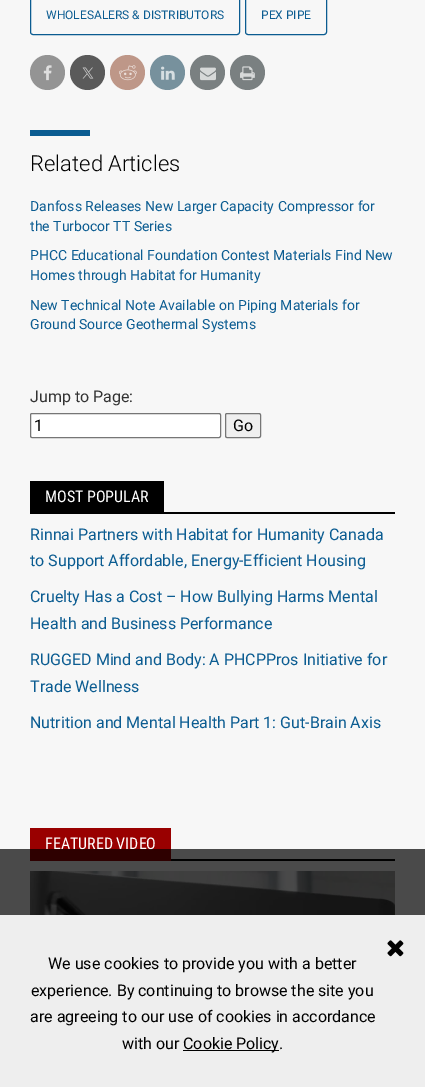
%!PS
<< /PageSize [425 1087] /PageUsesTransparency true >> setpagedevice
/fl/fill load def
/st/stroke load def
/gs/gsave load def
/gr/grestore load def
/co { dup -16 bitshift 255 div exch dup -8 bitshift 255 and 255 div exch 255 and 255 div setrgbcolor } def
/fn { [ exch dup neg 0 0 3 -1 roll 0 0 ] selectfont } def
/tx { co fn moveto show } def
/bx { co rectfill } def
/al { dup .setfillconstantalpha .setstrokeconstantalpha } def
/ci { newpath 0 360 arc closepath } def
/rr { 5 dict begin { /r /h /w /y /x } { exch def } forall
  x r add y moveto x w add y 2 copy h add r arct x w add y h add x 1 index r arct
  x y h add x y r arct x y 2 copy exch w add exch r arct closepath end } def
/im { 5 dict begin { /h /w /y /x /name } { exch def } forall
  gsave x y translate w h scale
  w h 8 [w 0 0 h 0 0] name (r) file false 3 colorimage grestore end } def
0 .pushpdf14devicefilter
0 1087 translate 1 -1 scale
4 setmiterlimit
0 0 425 1087 16#F7F7F7 bx
16#0B5C91 co
30.5 -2.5 209 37 2.5 rr st
245.5 -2.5 81 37 2.5 rr st
16#949494 co
47.5 72.5 17.5 ci fl
(media/1.raw) 43 65 9 16 im
16#5A5A5A co
87.5 72.5 17.5 ci fl
(media/2.raw) 82 67 12 12 im
16#BE9788 co
127.5 72.5 17.5 ci fl
(media/3.raw) 119 65 18 16 im
16#77919D co
167.5 72.5 17.5 ci fl
(media/4.raw) 161 66 14 14 im
16#7A8081 co
207.5 72.5 17.5 ci fl
(media/5.raw) 200 67 16 14 im
247.5 72.5 17.5 ci fl
(media/6.raw) 240 66 15 15 im
30 130 60 6 16#0B5C91 bx
16#FFFFFF co
30.5 413.5 190 24 1.5 rr gs fl gr
16#767676 co
st
16#EFEFEF co
225.5 413.5 35 24 1.5 rr gs fl gr
16#767676 co
st
30 481 134 33 16#000000 bx
164 512 231 2 16#000000 bx
171 859 224 2 16#000000 bx
30 828 141 33 16#990000 bx
(media/7.raw) 30 871 365 44 im
0 915 425 172 16#EEEEEE bx
(media/8.raw) 387 940 17 17 im
183 1050 96 1 16#000000 bx
(WHOLESALERS & DISTRIBUTORS) 46 19 /Roboto-Regular 12 16#0B5C91 tx
(PEX PIPE) 261 19 /Roboto-Regular 12 16#0B5C91 tx
(Related Articles) 30 171 /Roboto-Light 22 16#000000 tx
(Danfoss Releases New Larger Capacity Compressor for) 30 211 /Roboto-Regular 14 16#0B5C91 tx
(the Turbocor TT Series) 30 231 /Roboto-Regular 14 16#0B5C91 tx
(PHCC Educational Foundation Contest Materials Find New) 30 260 /Roboto-Regular 14 16#0B5C91 tx
(Homes through Habitat for Humanity) 30 280 /Roboto-Regular 14 16#0B5C91 tx
(New Technical Note Available on Piping Materials for) 30 310 /Roboto-Regular 14 16#0B5C91 tx
(Ground Source Geothermal Systems) 30 329 /Roboto-Regular 14 16#0B5C91 tx
(Jump to Page:) 30 402 /Roboto-Regular 16 16#333333 tx
(1) 34 431 /Roboto-Regular 16 16#000000 tx
(Go) 233 431 /Roboto-Regular 16 16#000000 tx
(MOST POPULAR) 45 502 /RobotoCondensed-Regular 16 16#FFFFFF tx
(Rinnai Partners with Habitat for Humanity Canada) 30 540 /Roboto-Regular 16 16#0B5C91 tx
(to Support Affordable, Energy-Efficient Housing) 30 566 /Roboto-Regular 16 16#0B5C91 tx
(Cruelty Has a Cost – How Bullying Harms Mental) 30 602 /Roboto-Regular 16 16#0B5C91 tx
(Health and Business Performance) 30 629 /Roboto-Regular 16 16#0B5C91 tx
(RUGGED Mind and Body: A PHCPPros Initiative for) 30 665 /Roboto-Regular 16 16#0B5C91 tx
(Trade Wellness) 30 692 /Roboto-Regular 16 16#0B5C91 tx
(Nutrition and Mental Health Part 1: Gut-Brain Axis) 30 728 /Roboto-Regular 16 16#0B5C91 tx
(FEATURED VIDEO) 45 849 /RobotoCondensed-Regular 16 16#FFFFFF tx
0.7 al
0 849 425 66 16#000000 bx
1 al
(We use cookies to provide you with a better) 48 969 /Roboto-Regular 16 16#000000 tx
(experience. By continuing to browse the site you) 31 996 /Roboto-Regular 16 16#000000 tx
(are agreeing to our use of cookies in accordance) 30 1022 /Roboto-Regular 16 16#000000 tx
(with our) 122 1049 /Roboto-Regular 16 16#000000 tx
(Cookie Policy.) 183 1049 /Roboto-Regular 16 16#000000 tx
.poppdf14devicefilter showpage
